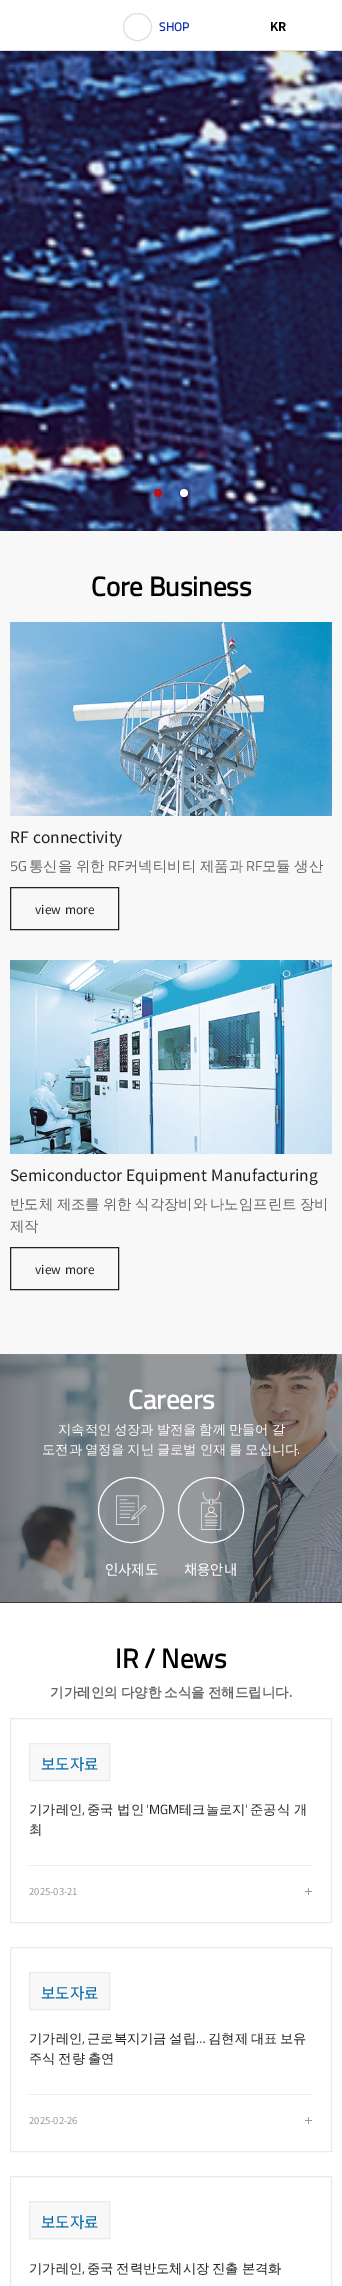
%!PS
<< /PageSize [342 2286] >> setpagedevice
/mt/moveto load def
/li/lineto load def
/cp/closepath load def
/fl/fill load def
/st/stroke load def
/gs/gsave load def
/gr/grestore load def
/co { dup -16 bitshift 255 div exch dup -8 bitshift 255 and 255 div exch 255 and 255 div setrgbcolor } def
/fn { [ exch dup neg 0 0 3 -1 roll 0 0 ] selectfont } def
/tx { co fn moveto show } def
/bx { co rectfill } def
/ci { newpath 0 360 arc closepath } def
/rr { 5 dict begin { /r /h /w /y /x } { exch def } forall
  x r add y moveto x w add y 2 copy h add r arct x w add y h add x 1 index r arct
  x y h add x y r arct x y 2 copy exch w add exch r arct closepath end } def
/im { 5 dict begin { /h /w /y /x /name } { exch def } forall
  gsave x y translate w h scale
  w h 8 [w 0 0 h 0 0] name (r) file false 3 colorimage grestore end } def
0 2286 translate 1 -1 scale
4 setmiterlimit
0 0 342 2286 16#FFFFFF bx
0 50 342 1 16#DDDDDD bx
16#DEDEDE co
123.5 13.5 28 27 13.5 rr st
(media/1.raw) 0 51 342 480 im
16#C30D14 co
158 493 4 ci fl
16#FFFFFF co
184 493 4 ci fl
0 531 342 823 16#F8F8F8 bx
(media/2.raw) 10 622 322 194 im
16#222222 co
10.5 887.5 108 42 rectstroke
(media/3.raw) 10 960 322 194 im
10.5 1247.5 108 42 rectstroke
0 1602 342 1 16#373741 bx
(media/4.raw) 0 1354 342 248 im
(media/5.raw) 116 1495 31 30 im
16#FFFFFF co
131 1510 32.5 ci st
(media/6.raw) 201 1491 21 39 im
211 1510 32.5 ci st
16#EAEAEA co
10.5 1718.5 321 204 rectstroke
16#F8F8F8 co
29.5 1743.5 mt 109.5 1743.5 li 109.5 1780.5 li 29.5 1780.5 li cp gs fl gr
16#EAEAEA co
st
29 1865 284 1 16#EAEAEA bx
308 1888 1 7 16#999999 bx
305 1891 7 1 16#999999 bx
16#EAEAEA co
10.5 1947.5 321 204 rectstroke
16#F8F8F8 co
29.5 1972.5 mt 109.5 1972.5 li 109.5 2009.5 li 29.5 2009.5 li cp gs fl gr
16#EAEAEA co
st
29 2094 284 1 16#EAEAEA bx
308 2117 1 7 16#999999 bx
305 2120 7 1 16#999999 bx
16#EAEAEA co
10.5 2176.5 321 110 rectstroke
16#F8F8F8 co
29.5 2201.5 mt 109.5 2201.5 li 109.5 2238.5 li 29.5 2238.5 li cp gs fl gr
16#EAEAEA co
st
(SHOP) 159 31 /TitilliumWeb-Bold 12 16#1432B4 tx
(KR) 270 31 /NotoSansKR-Bold 12 16#000000 tx
(Core Business) 91 596 /TitilliumWeb-Bold 27 16#000000 tx
(RF) 10 843 /NotoSansKR-Regular 15.6 16#222222 tx
(connectivity) 33 843 /NotoSansKR-Regular 15.6 16#222222 tx
(5G) 10 871 /TitilliumWeb-Regular 14.4 16#666666 tx
/WenQuanYiZenHei-Medium 14.4 fn
29 871 mt -1 0 32 (통신을 위한) widthshow
(RF) 108 871 /TitilliumWeb-Regular 14.4 16#666666 tx
(커넥티비티) 124 871 /WenQuanYiZenHei-Medium 14.4 16#666666 tx
(제품과) 200 871 /WenQuanYiZenHei-Medium 14.4 16#666666 tx
(RF) 246 871 /TitilliumWeb-Regular 14.4 16#666666 tx
/WenQuanYiZenHei-Medium 14.4 fn
262 871 mt -1 0 32 (모듈 생산) widthshow
/NotoSansKR-Regular 12 fn
16#222222 co
35 914 mt 1 0 32 (view more) widthshow
(Semiconductor) 10 1181 /NotoSansKR-Regular 15.6 16#222222 tx
126 1181 mt 1 0 32 (Equipment Manufacturing) widthshow
/WenQuanYiZenHei-Medium 14.4 fn
16#666666 co
10 1209 mt -1 0 32 (반도체 제조를 위한 식각장비와) widthshow
210 1209 mt -1 0 32 (나노임프린트 장비) widthshow
(제작) 10 1231 /WenQuanYiZenHei-Medium 14.4 16#666666 tx
/NotoSansKR-Regular 12 fn
16#222222 co
35 1274 mt 1 0 32 (view more) widthshow
(Careers) 128 1409 /TitilliumWeb-Bold 27 16#FFFFFF tx
/WenQuanYiZenHei-Medium 13.25 fn
58 1434 mt -1 0 32 (지속적인 성장과 발전을 함께 만들어 갈) widthshow
42 1454 mt -1 0 32 (도전과 열정을 지닌 글로벌 인재 를 모십니다) widthshow
(.) 297 1454 /TitilliumWeb-Regular 13.25 16#FFFFFF tx
(인사제도) 105 1575 /NotoSansKR-Regular 14.4 16#FFFFFF tx
(채용안내) 184 1575 /NotoSansKR-Regular 14.4 16#FFFFFF tx
(IR / News) 115 1668 /TitilliumWeb-Bold 27 16#000000 tx
/WenQuanYiZenHei-Bold 13.5 fn
16#666666 co
50 1697 mt -1 0 32 (기가레인의 다양한 소식을 전해드립니다) widthshow
(.) 289 1697 /TitilliumWeb-Bold 13.5 16#666666 tx
(보도자료) 41 1770 /NotoSansKR-Regular 15.6 16#0067A9 tx
(기가레인) 29 1814 /WenQuanYiZenHei-Medium 13.25 16#222222 tx
(,) 82 1814 /TitilliumWeb-Regular 13.25 16#222222 tx
(중국 법인) 87 1814 /WenQuanYiZenHei-Medium 13.25 16#222222 tx
('MGM) 146 1814 /TitilliumWeb-Regular 13.25 16#222222 tx
(테크놀로지) 179 1814 /WenQuanYiZenHei-Medium 13.25 16#222222 tx
(') 245 1814 /TitilliumWeb-Regular 13.25 16#222222 tx
(준공식 개) 250 1814 /WenQuanYiZenHei-Medium 13.25 16#222222 tx
(최) 29 1834 /WenQuanYiZenHei-Medium 13.25 16#222222 tx
(2025-03-21) 29 1895 /NotoSansKR-Regular 9.5 16#999999 tx
(보도자료) 41 1999 /NotoSansKR-Regular 15.6 16#0067A9 tx
(기가레인) 29 2043 /WenQuanYiZenHei-Medium 13.25 16#222222 tx
(,) 82 2043 /TitilliumWeb-Regular 13.25 16#222222 tx
/WenQuanYiZenHei-Medium 13.25 fn
87 2043 mt -1 0 32 (근로복지기금 설립) widthshow
(…) 196 2043 /TitilliumWeb-Regular 13.25 16#222222 tx
/WenQuanYiZenHei-Medium 13.25 fn
208 2043 mt -1 0 32 (김현제 대표 보유) widthshow
29 2063 mt -1 0 32 (주식 전량 출연) widthshow
(2025-02-26) 29 2124 /NotoSansKR-Regular 9.5 16#999999 tx
(보도자료) 41 2228 /NotoSansKR-Regular 15.6 16#0067A9 tx
(기가레인) 29 2273 /WenQuanYiZenHei-Medium 13.25 16#222222 tx
(,) 82 2273 /TitilliumWeb-Regular 13.25 16#222222 tx
/WenQuanYiZenHei-Medium 13.25 fn
87 2273 mt -1 0 32 (중국 전력반도체시장 진출 본격화) widthshow
showpage
